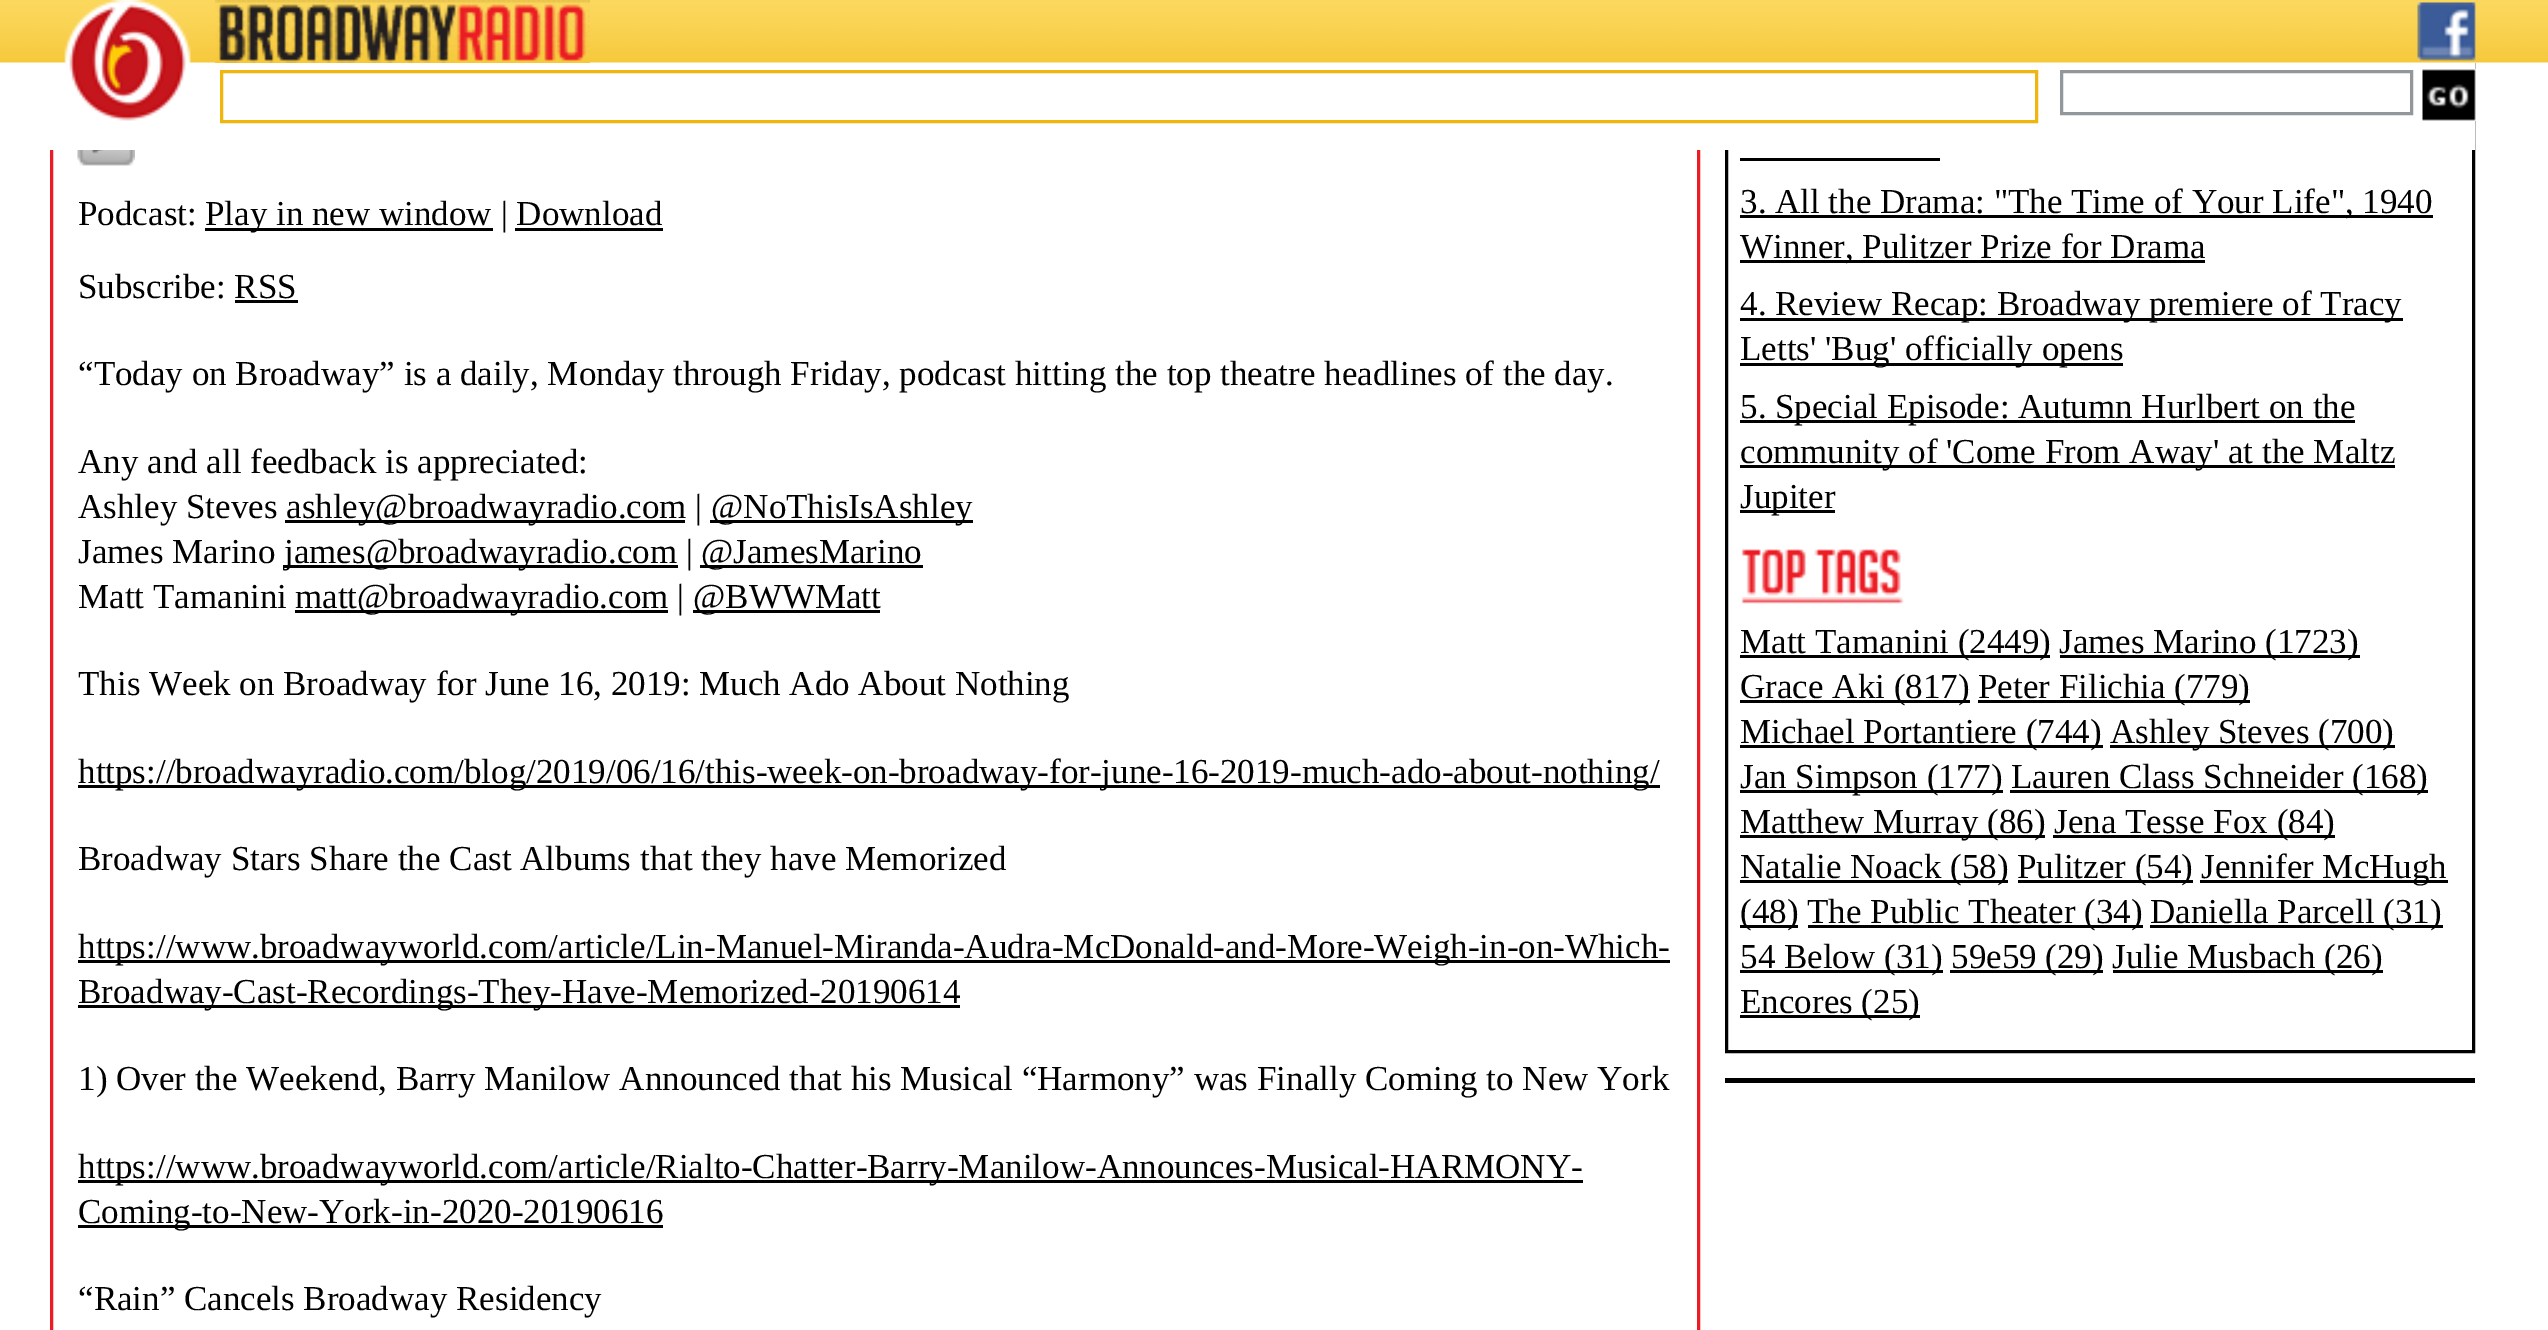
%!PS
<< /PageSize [2548 1330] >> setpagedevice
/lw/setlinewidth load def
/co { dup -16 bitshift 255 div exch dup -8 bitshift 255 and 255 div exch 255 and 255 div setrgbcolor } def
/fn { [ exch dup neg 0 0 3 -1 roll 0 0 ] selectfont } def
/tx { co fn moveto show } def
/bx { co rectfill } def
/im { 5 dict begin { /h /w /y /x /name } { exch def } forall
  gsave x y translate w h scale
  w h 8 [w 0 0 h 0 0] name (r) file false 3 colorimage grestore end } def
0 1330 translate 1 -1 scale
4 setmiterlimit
0 0 2548 1330 16#FFFFFF bx
16#EB1C24 co
3 lw
51.5 -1.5 1647 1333 rectstroke
16#000000 co
1726.5 -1.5 747 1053 rectstroke
50 62 2425 88 16#FFFFFF bx
(media/1.raw) 0 0 2548 63 im
(media/2.raw) 64 0 127 121 im
(media/3.raw) 215 0 375 63 im
(media/4.raw) 2417 2 59 59 im
16#F0B610 co
221.5 71.5 1815 50 rectstroke
16#92979B co
2061.5 71.5 350 42 rectstroke
(media/5.raw) 2422 69 54 52 im
(media/6.raw) 77 150 58 16 im
205 228 288 3 16#000000 bx
515 228 148 3 16#000000 bx
235 300 63 3 16#000000 bx
285 520 400 3 16#000000 bx
710 520 263 3 16#000000 bx
283 565 395 3 16#000000 bx
700 565 223 3 16#000000 bx
295 610 373 3 16#000000 bx
693 610 187 3 16#000000 bx
78 785 1582 3 16#000000 bx
78 960 1592 3 16#000000 bx
78 1005 882 3 16#000000 bx
78 1180 1505 3 16#000000 bx
78 1225 585 3 16#000000 bx
1740 158 200 3 16#000000 bx
1740 215 693 3 16#000000 bx
1740 260 465 3 16#000000 bx
1740 318 663 3 16#000000 bx
1740 363 383 3 16#000000 bx
1740 420 615 3 16#000000 bx
1740 465 655 3 16#000000 bx
1740 510 95 3 16#000000 bx
(media/7.raw) 1741 549 163 55 im
1740 655 310 3 16#000000 bx
2060 655 300 3 16#000000 bx
1740 700 230 3 16#000000 bx
1978 700 272 3 16#000000 bx
1740 745 363 3 16#000000 bx
2110 745 285 3 16#000000 bx
1740 790 263 3 16#000000 bx
2010 790 418 3 16#000000 bx
1740 835 305 3 16#000000 bx
2053 835 282 3 16#000000 bx
1740 880 268 3 16#000000 bx
2018 880 175 3 16#000000 bx
2200 880 248 3 16#000000 bx
1740 925 58 3 16#000000 bx
1808 925 335 3 16#000000 bx
2150 925 293 3 16#000000 bx
1740 970 203 3 16#000000 bx
1950 970 153 3 16#000000 bx
2113 970 270 3 16#000000 bx
1740 1015 180 3 16#000000 bx
1725 1078 750 5 16#000000 bx
(Podcast:) 78 225 /LiberationSerif-Regular 35 16#000000 tx
(Play in new window | Download) 205 225 /LiberationSerif-Regular 35 16#000000 tx
(Subscribe: RSS) 78 298 /LiberationSerif-Regular 35 16#000000 tx
(“Today on Broadway” is a daily, Monday through Friday, podcast hitting the top theatre headlines of the day.) 78 385 /LiberationSerif-Regular 35 16#000000 tx
(Any and all feedback is appreciated:) 78 473 /LiberationSerif-Regular 35 16#000000 tx
(Ashley Steves) 78 518 /LiberationSerif-Regular 35 16#000000 tx
(ashley@broadwayradio.com |) 286 518 /LiberationSerif-Regular 35 16#000000 tx
(@NoThisIsAshley) 711 518 /LiberationSerif-Regular 35 16#000000 tx
(James Marino) 78 563 /LiberationSerif-Regular 35 16#000000 tx
(james@broadwayradio.com |) 284 563 /LiberationSerif-Regular 35 16#000000 tx
(@JamesMarino) 701 563 /LiberationSerif-Regular 35 16#000000 tx
(Matt Tamanini) 78 608 /LiberationSerif-Regular 35 16#000000 tx
(matt@broadwayradio.com |) 295 608 /LiberationSerif-Regular 35 16#000000 tx
(@BWWMatt) 693 608 /LiberationSerif-Regular 35 16#000000 tx
(This Week on Broadway for June 16, 2019: Much Ado About Nothing) 78 695 /LiberationSerif-Regular 35 16#000000 tx
(https://broadwayradio.com/blog/2019/06/16/this-week-on-broadway-for-june-16-2019-much-ado-about-nothing/) 78 783 /LiberationSerif-Regular 35 16#000000 tx
(Broadway Stars Share the Cast Albums that they have Memorized) 78 870 /LiberationSerif-Regular 35 16#000000 tx
(https://www.broadwayworld.com/article/Lin-Manuel-Miranda-Audra-McDonald-and-More-Weigh-in-on-Which-) 78 958 /LiberationSerif-Regular 35 16#000000 tx
(Broadway-Cast-Recordings-They-Have-Memorized-20190614) 78 1003 /LiberationSerif-Regular 35 16#000000 tx
(1\) Over the Weekend, Barry Manilow Announced that his Musical “Harmony” was Finally Coming to New York) 78 1090 /LiberationSerif-Regular 35 16#000000 tx
(https://www.broadwayworld.com/article/Rialto-Chatter-Barry-Manilow-Announces-Musical-HARMONY-) 78 1178 /LiberationSerif-Regular 35 16#000000 tx
(Coming-to-New-York-in-2020-20190616) 78 1223 /LiberationSerif-Regular 35 16#000000 tx
(“Rain” Cancels Broadway Residency) 78 1310 /LiberationSerif-Regular 35 16#000000 tx
(3. All the Drama: "The Time of Your Life", 1940) 1740 213 /LiberationSerif-Regular 35 16#000000 tx
(Winner, Pulitzer Prize for Drama) 1740 258 /LiberationSerif-Regular 35 16#000000 tx
(4. Review Recap: Broadway premiere of Tracy) 1740 315 /LiberationSerif-Regular 35 16#000000 tx
(Letts' 'Bug' officially opens) 1740 360 /LiberationSerif-Regular 35 16#000000 tx
(5. Special Episode: Autumn Hurlbert on the) 1740 418 /LiberationSerif-Regular 35 16#000000 tx
(community of 'Come From Away' at the Maltz) 1740 463 /LiberationSerif-Regular 35 16#000000 tx
(Jupiter) 1740 508 /LiberationSerif-Regular 35 16#000000 tx
(Matt Tamanini \(2449\)) 1740 653 /LiberationSerif-Regular 35 16#000000 tx
(James Marino \(1723\)) 2059 653 /LiberationSerif-Regular 35 16#000000 tx
(Grace Aki \(817\)) 1740 698 /LiberationSerif-Regular 35 16#000000 tx
(Peter Filichia \(779\)) 1978 698 /LiberationSerif-Regular 35 16#000000 tx
(Michael Portantiere \(744\)) 1740 743 /LiberationSerif-Regular 35 16#000000 tx
(Ashley Steves \(700\)) 2110 743 /LiberationSerif-Regular 35 16#000000 tx
(Jan Simpson \(177\)) 1740 788 /LiberationSerif-Regular 35 16#000000 tx
(Lauren Class Schneider \(168\)) 2011 788 /LiberationSerif-Regular 35 16#000000 tx
(Matthew Murray \(86\)) 1740 833 /LiberationSerif-Regular 35 16#000000 tx
(Jena Tesse Fox \(84\)) 2054 833 /LiberationSerif-Regular 35 16#000000 tx
(Natalie Noack \(58\)) 1740 878 /LiberationSerif-Regular 35 16#000000 tx
(Pulitzer \(54\)) 2017 878 /LiberationSerif-Regular 35 16#000000 tx
(Jennifer McHugh) 2201 878 /LiberationSerif-Regular 35 16#000000 tx
(\(48\)) 1740 923 /LiberationSerif-Regular 35 16#000000 tx
(The Public Theater \(34\)) 1807 923 /LiberationSerif-Regular 35 16#000000 tx
(Daniella Parcell \(31\)) 2150 923 /LiberationSerif-Regular 35 16#000000 tx
(54 Below \(31\)) 1740 968 /LiberationSerif-Regular 35 16#000000 tx
(59e59 \(29\)) 1951 968 /LiberationSerif-Regular 35 16#000000 tx
(Julie Musbach \(26\)) 2112 968 /LiberationSerif-Regular 35 16#000000 tx
(Encores \(25\)) 1740 1013 /LiberationSerif-Regular 35 16#000000 tx
showpage
